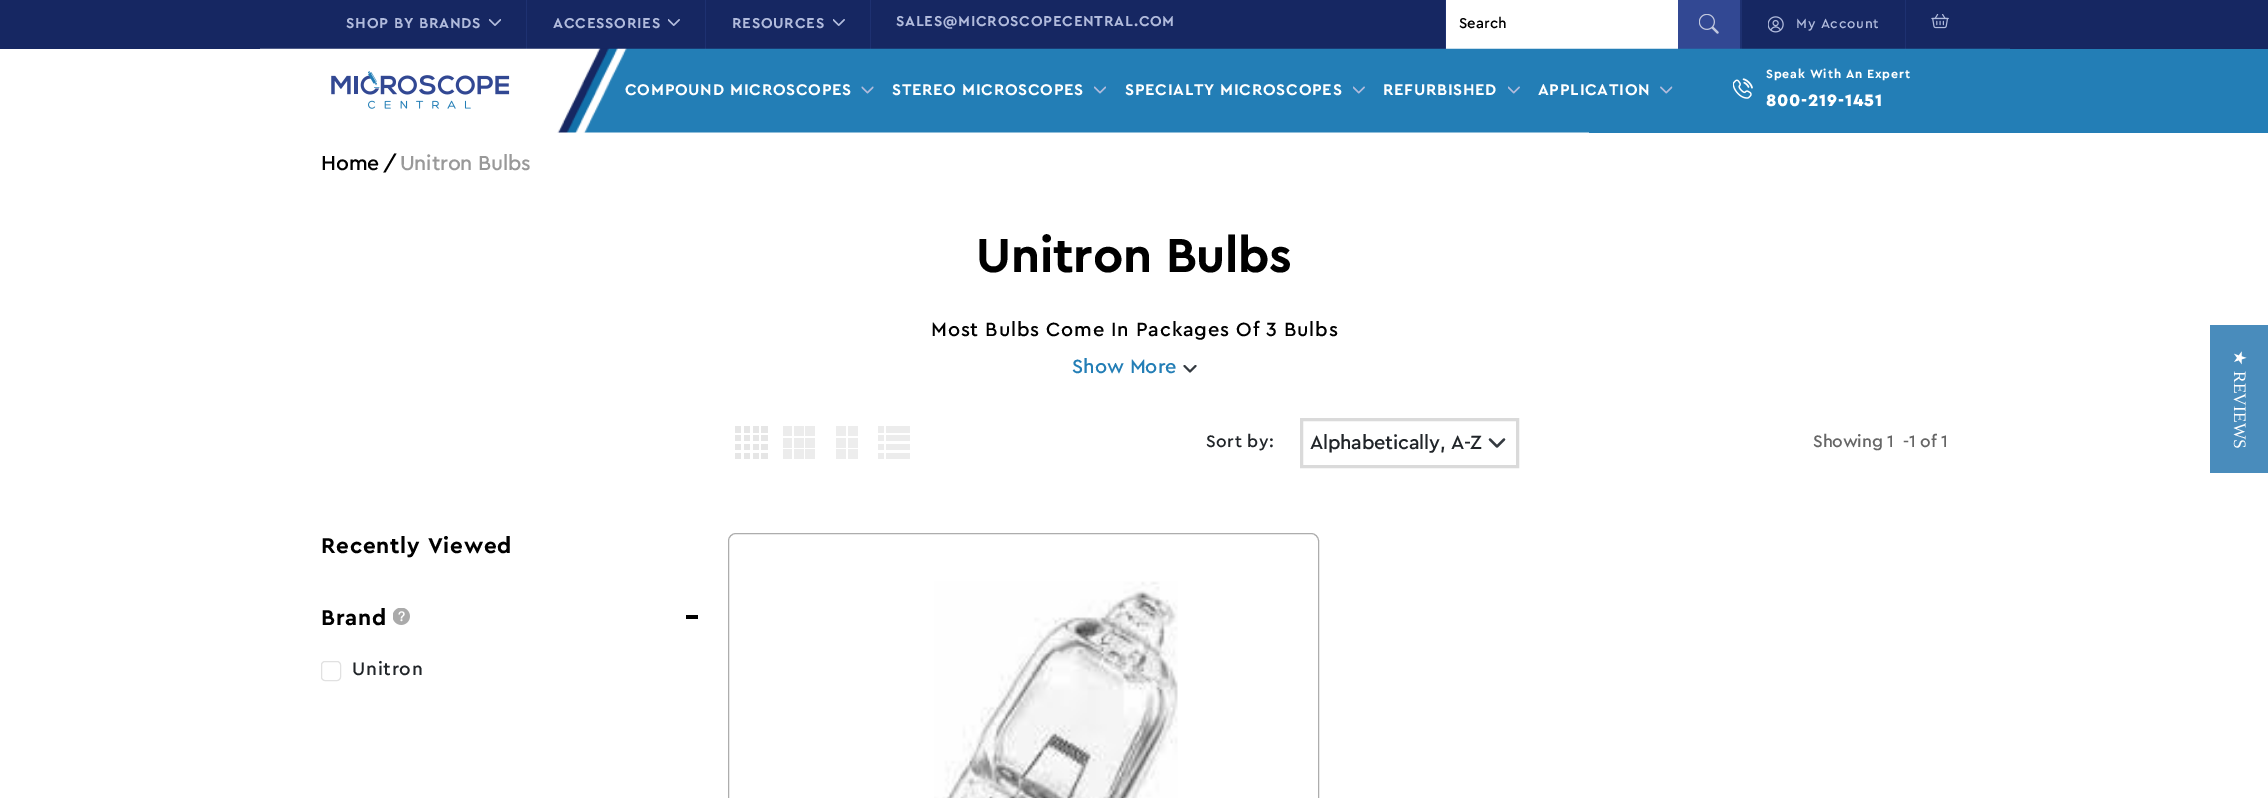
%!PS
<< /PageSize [2268 798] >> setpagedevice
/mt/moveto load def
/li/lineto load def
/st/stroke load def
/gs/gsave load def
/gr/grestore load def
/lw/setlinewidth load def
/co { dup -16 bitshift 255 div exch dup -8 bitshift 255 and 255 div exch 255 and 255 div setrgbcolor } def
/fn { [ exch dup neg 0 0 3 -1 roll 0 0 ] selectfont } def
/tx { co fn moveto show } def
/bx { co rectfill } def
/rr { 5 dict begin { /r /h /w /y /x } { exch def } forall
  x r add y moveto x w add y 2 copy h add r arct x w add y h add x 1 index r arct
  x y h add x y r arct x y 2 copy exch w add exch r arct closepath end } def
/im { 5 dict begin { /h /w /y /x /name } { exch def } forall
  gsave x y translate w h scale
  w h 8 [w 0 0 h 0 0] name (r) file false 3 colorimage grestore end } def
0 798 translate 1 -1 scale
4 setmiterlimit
0 0 2268 798 16#FFFFFF bx
0 0 2268 49 16#162762 bx
(media/1.raw) 489 19 12 7 im
526 0 1 49 16#1E3171 bx
(media/2.raw) 668 19 12 7 im
705 0 1 49 16#1E3171 bx
(media/2.raw) 833 19 12 7 im
870 0 1 49 16#1E3171 bx
1740 0 2 49 16#1E3171 bx
1445 0 1 49 16#1E3171 bx
1446 0 232 49 16#FFFFFF bx
1678 0 62 49 16#324893 bx
(media/3.raw) 1699 14 20 20 im
(media/4.raw) 1768 16 16 17 im
1905 0 1 49 16#1E3171 bx
(media/5.raw) 1931 14 18 15 im
(media/6.raw) 260 48 1750 85 im
(media/7.raw) 331 71 179 38 im
(media/8.raw) 861 86 13 8 im
(media/9.raw) 1094 86 12 8 im
(media/10.raw) 1353 86 12 8 im
(media/10.raw) 1508 86 12 8 im
1589 49 679 84 16#237EB6 bx
(media/11.raw) 1660 86 13 8 im
(media/12.raw) 1733 78 20 21 im
16#343A40 co
1.9 lw
1 setlinecap
1 setlinejoin
1184.5 366 mt 1190 371.5 li 1195.5 366 li st
(media/13.raw) 735 426 33 33 im
(media/14.raw) 783 426 32 33 im
836 426 10 10 16#EDEDED bx
848 426 10 10 16#EDEDED bx
836 438 10 10 16#EDEDED bx
848 438 10 10 16#EDEDED bx
836 449 10 10 16#EDEDED bx
848 449 10 10 16#EDEDED bx
(media/15.raw) 878 426 32 33 im
16#343A40 co
2.3 lw
1490 439.5 mt 1497 446.5 li 1504 439.5 li st
16#DADADA co
3 lw
0 setlinecap
0 setlinejoin
1301.5 419.5 216 47 rectstroke
(media/16.raw) 393 608 17 17 im
686 615 12 4 16#000000 bx
16#E1E1E1 co
1 lw
321.5 661.5 19 19 3.5 rr st
16#ADADAD co
728.5 533.5 590 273 7.5 rr st
(media/17.raw) 934 581 244 217 im
2210 325 58 148 16#498CBC bx
/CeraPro-Bold 15 fn
16#B1BBDC co
346 28 mt .75 0 (SHOP BY BRANDS) ashow
553 28 mt .75 0 (ACCESSORIES) ashow
732 28 mt .75 0 (RESOURCES) ashow
896 26 mt .75 0 (SALES@MICROSCOPECENTRAL.COM) ashow
(Search) 1459 28 /CeraPro-Medium 15 16#000000 tx
/CeraPro-Medium 13.75 fn
16#B1BBDC co
1796 28 mt .75 0 (My Account) ashow
/CeraPro-Bold 16.25 fn
16#FFFFFF co
625 95 mt .75 0 (COMPOUND MICROSCOPES) ashow
892 95 mt .75 0 (STEREO MICROSCOPES) ashow
1125 95 mt .75 0 (SPECIALTY MICROSCOPES) ashow
1383 95 mt .75 0 (REFURBISHED) ashow
1538 95 mt .75 0 (APPLICATION) ashow
/CeraPro-Bold 12.5 fn
1766 78 mt .75 0 (Speak With An Expert) ashow
/CeraPro-Black 17.5 fn
1766 106 mt .75 0 (800-219-1451) ashow
/CeraPro-Medium 21.25 fn
16#000000 co
321 170 mt -.25 0 (Home) ashow
383 170 mt -.25 0 (/) ashow
16#999999 co
400 170 mt -.25 0 (Unitron Bulbs) ashow
/CeraPro-Bold 50 fn
16#000000 co
976 272 mt -.25 0 (Unitron Bulbs) ashow
/CeraPro-Medium 20 fn
931 336 mt .75 0 (Most Bulbs Come In Packages Of 3 Bulbs) ashow
(Show More) 1072 373 /CeraPro-Medium 20 16#237EB6 tx
/CeraPro-Medium 17.5 fn
16#212529 co
1206 447 mt .5 0 (Sort by:) ashow
/CeraPro-Medium 20 fn
1310 449 mt -.25 0 (Alphabetically, A-Z) ashow
/CeraPro-Medium 17.5 fn
16#666666 co
1813 447 mt -.25 0 (Showing) ashow
1887 447 mt 5 0 32 -.25 0 (1 -) awidthshow
1909 447 mt -.25 0 (1 of 1) ashow
/CeraPro-Bold 22.5 fn
16#000000 co
321 553 mt .75 0 (Recently Viewed) ashow
321 625 mt .75 0 (Brand) ashow
/CeraPro-Medium 19 fn
16#212529 co
352 675 mt .75 0 (Unitron) ashow
/DejaVuSans-Regular 17.5 fn
16#FFFFFF co
gs 2234 350 translate 90 rotate 0 0 mt (★) show gr
/LiberationSerif-Regular 17.5 fn
gs 2234 371 translate 90 rotate 0 0 mt (REVIEWS) show gr
showpage
